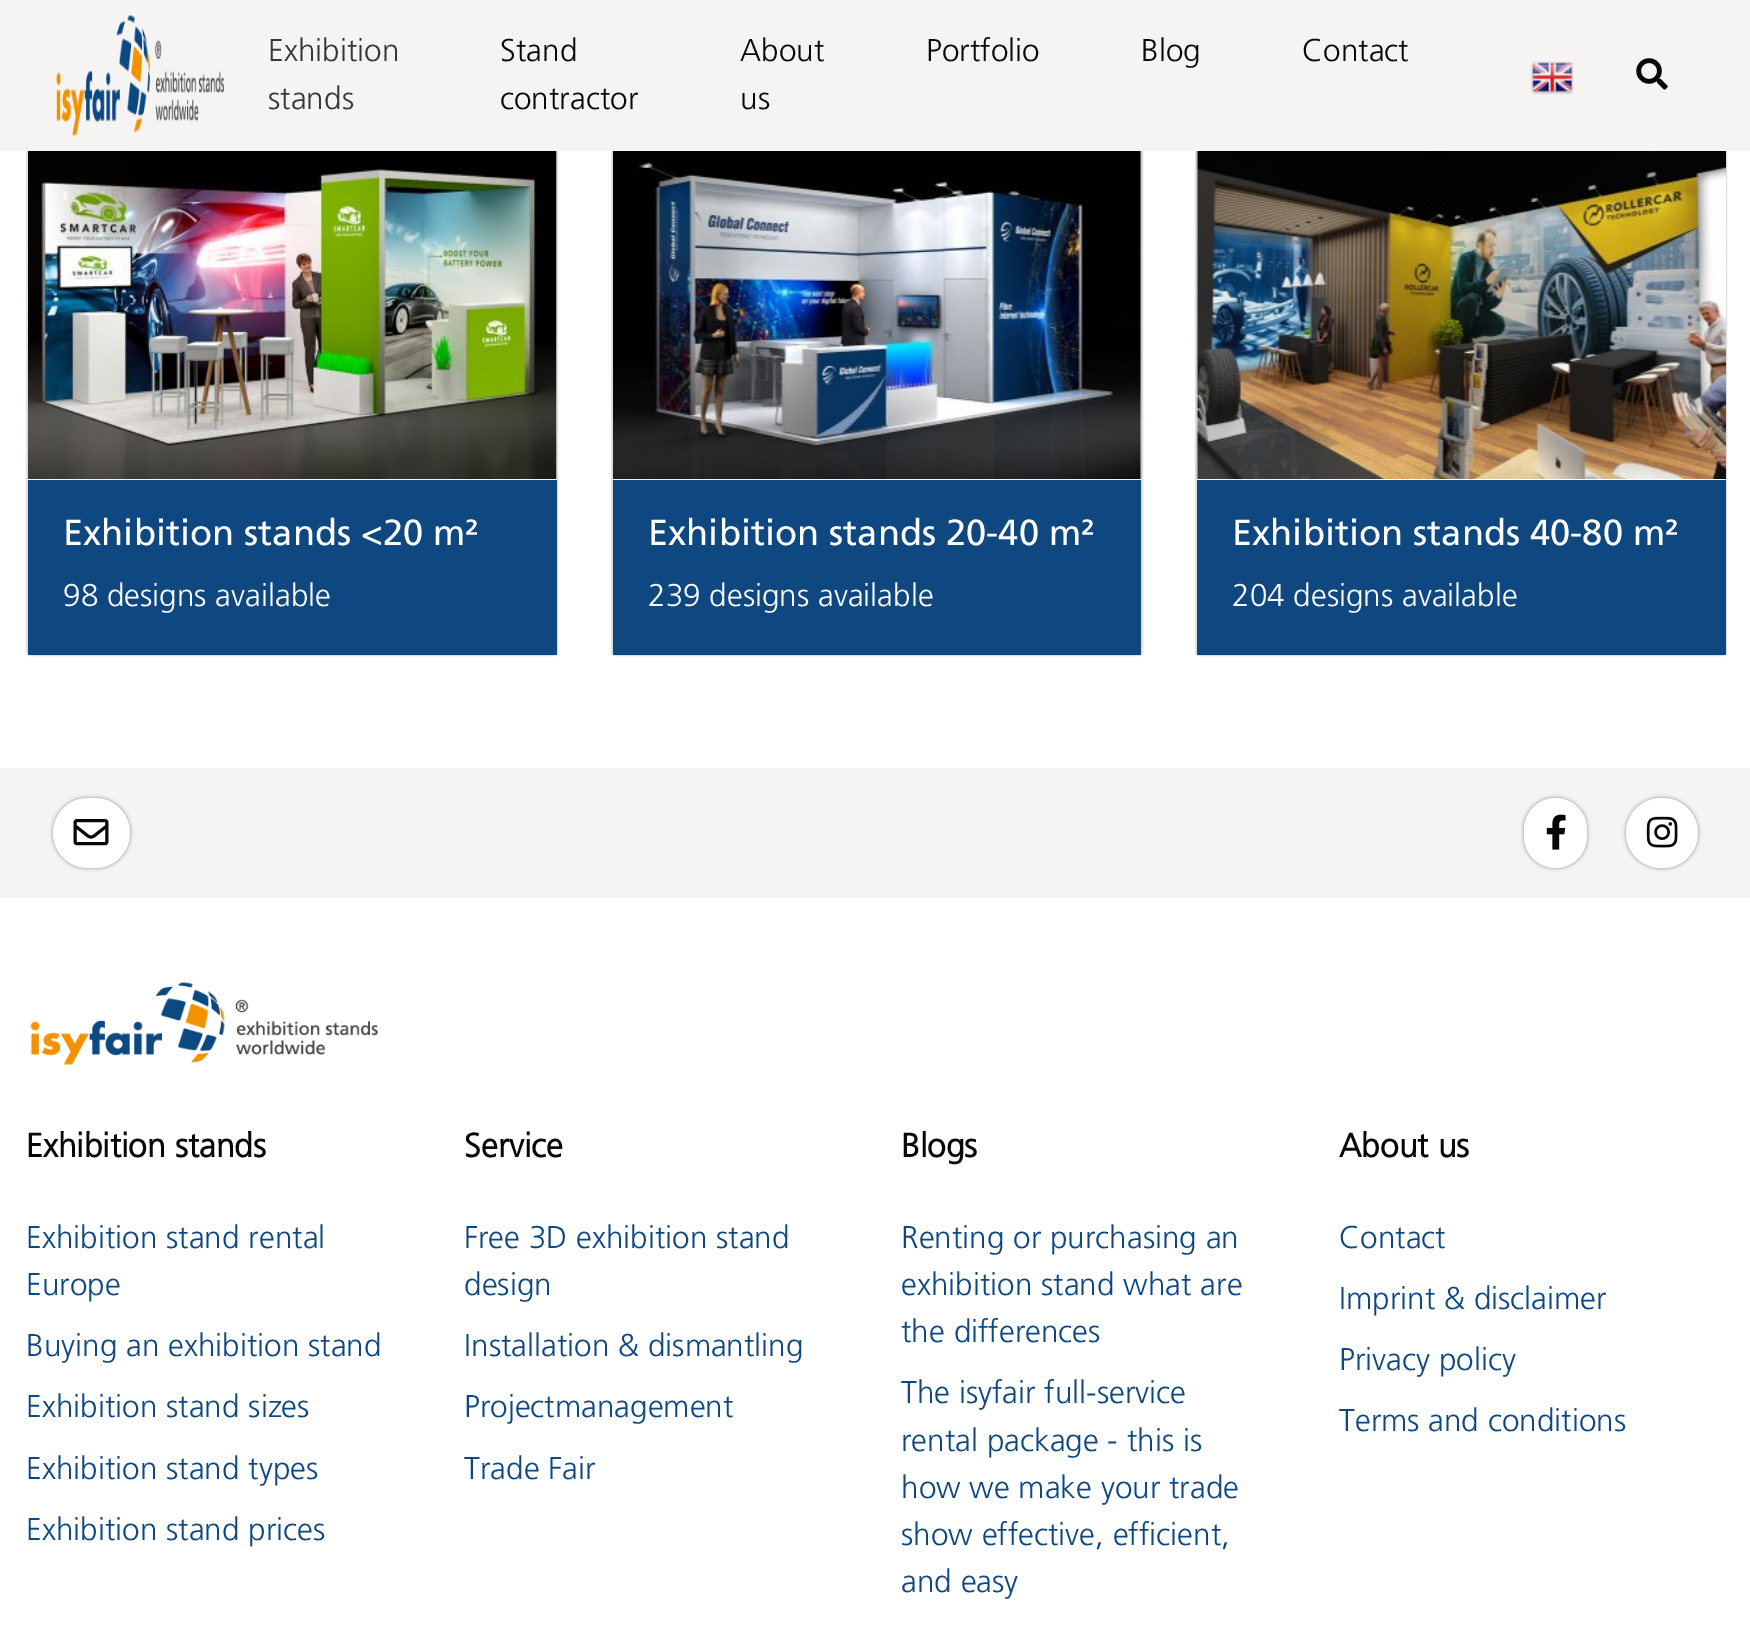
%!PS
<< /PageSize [1750 1648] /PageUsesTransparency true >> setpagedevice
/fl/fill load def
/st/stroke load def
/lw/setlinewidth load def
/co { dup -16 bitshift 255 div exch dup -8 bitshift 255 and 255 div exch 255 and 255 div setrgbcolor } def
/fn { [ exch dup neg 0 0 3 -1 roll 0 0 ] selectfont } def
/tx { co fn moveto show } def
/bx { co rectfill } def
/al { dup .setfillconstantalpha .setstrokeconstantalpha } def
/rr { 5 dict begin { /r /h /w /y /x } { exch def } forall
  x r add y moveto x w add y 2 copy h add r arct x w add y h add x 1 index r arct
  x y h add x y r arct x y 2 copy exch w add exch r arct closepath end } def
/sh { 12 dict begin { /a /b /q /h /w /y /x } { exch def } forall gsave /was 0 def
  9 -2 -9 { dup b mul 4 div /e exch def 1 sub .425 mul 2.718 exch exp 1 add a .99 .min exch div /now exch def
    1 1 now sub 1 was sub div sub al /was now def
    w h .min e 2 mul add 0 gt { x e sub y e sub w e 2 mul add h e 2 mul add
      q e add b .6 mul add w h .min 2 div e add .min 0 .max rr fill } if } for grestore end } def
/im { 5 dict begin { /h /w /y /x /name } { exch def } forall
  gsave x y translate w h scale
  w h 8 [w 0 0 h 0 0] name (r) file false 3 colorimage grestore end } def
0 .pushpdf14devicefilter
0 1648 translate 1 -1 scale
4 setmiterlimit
0 0 1750 1648 16#FFFFFF bx
16#DFDFDF co
2 lw
27 110 530 545 4 rr st
612 110 530 545 4 rr st
1196 110 530 545 4 rr st
0 0 1750 151 16#F5F4F3 bx
(media/1.raw) 56 15 168 121 im
(media/2.raw) 1531 61 43 34 im
(media/3.raw) 1636 58 32 32 im
(media/4.raw) 28 151 529 329 im
28 480 529 175 16#0F4881 bx
(media/5.raw) 613 151 529 329 im
613 480 528 175 16#0F4881 bx
(media/6.raw) 1196 151 530 329 im
1197 480 529 175 16#0F4881 bx
0 768 1750 130 16#F5F4F3 bx
16#888888 co
53 798 77 70 35 2 1 sh
16#FFFFFF co
53 798 77 70 35 rr fl
(media/7.raw) 73 819 36 27 im
16#888888 co
1524 798 63 70 31.5 2 1 sh
16#FFFFFF co
1524 798 63 70 31.5 rr fl
(media/8.raw) 1546 814 20 36 im
16#888888 co
1626 798 72 70 35 2 1 sh
16#FFFFFF co
1626 798 72 70 35 rr fl
(media/9.raw) 1646 816 32 32 im
(media/10.raw) 30 982 348 83 im
(Exhibition) 268 61 /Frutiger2-Regular 31.5 16#373737 tx
(stands) 268 109 /Frutiger2-Regular 31.5 16#373737 tx
(Stand) 500 61 /Frutiger2-Regular 31.5 16#080808 tx
(contractor) 500 109 /Frutiger2-Regular 31.5 16#080808 tx
(About) 740 61 /Frutiger2-Regular 31.5 16#080808 tx
(us) 740 109 /Frutiger2-Regular 31.5 16#080808 tx
(Portfolio) 926 61 /Frutiger2-Regular 31.5 16#080808 tx
(Blog) 1141 61 /Frutiger2-Regular 31.5 16#080808 tx
(Contact) 1302 61 /Frutiger2-Regular 31.5 16#080808 tx
(Exhibition stands <20 m²) 63 545 /Frutiger-Regular 36.25 16#FFFFFF tx
(98 designs available) 63 606 /Frutiger2-Regular 31.5 16#FFFFFF tx
(Exhibition stands 20-40 m²) 648 545 /Frutiger-Regular 36.25 16#FFFFFF tx
(239 designs available) 648 606 /Frutiger2-Regular 31.5 16#FFFFFF tx
(Exhibition stands 40-80 m²) 1232 545 /Frutiger-Regular 36.25 16#FFFFFF tx
(204 designs available) 1232 606 /Frutiger2-Regular 31.5 16#FFFFFF tx
(Exhibition stands) 26 1157 /Frutiger-Bold 33.5 16#080808 tx
(Exhibition stand rental) 26 1248 /Frutiger2-Regular 31.5 16#0F4881 tx
(Europe) 26 1295 /Frutiger2-Regular 31.5 16#0F4881 tx
(Buying an exhibition stand) 26 1356 /Frutiger2-Regular 31.5 16#0F4881 tx
(Exhibition stand sizes) 26 1417 /Frutiger2-Regular 31.5 16#0F4881 tx
(Exhibition stand types) 26 1479 /Frutiger2-Regular 31.5 16#0F4881 tx
(Exhibition stand prices) 26 1540 /Frutiger2-Regular 31.5 16#0F4881 tx
(Service) 464 1157 /Frutiger-Bold 33.5 16#080808 tx
(Free 3D exhibition stand) 464 1248 /Frutiger2-Regular 31.5 16#0F4881 tx
(design) 464 1295 /Frutiger2-Regular 31.5 16#0F4881 tx
(Installation & dismantling) 464 1356 /Frutiger2-Regular 31.5 16#0F4881 tx
(Projectmanagement) 464 1417 /Frutiger2-Regular 31.5 16#0F4881 tx
(Trade Fair) 464 1479 /Frutiger2-Regular 31.5 16#0F4881 tx
(Blogs) 901 1157 /Frutiger-Bold 33.5 16#080808 tx
(Renting or purchasing an) 901 1248 /Frutiger2-Regular 31.5 16#0F4881 tx
(exhibition stand what are) 901 1295 /Frutiger2-Regular 31.5 16#0F4881 tx
(the differences) 901 1342 /Frutiger2-Regular 31.5 16#0F4881 tx
(The isyfair full-service) 901 1403 /Frutiger2-Regular 31.5 16#0F4881 tx
(rental package - this is) 901 1451 /Frutiger2-Regular 31.5 16#0F4881 tx
(how we make your trade) 901 1498 /Frutiger2-Regular 31.5 16#0F4881 tx
(show effective, efficient,) 901 1545 /Frutiger2-Regular 31.5 16#0F4881 tx
(and easy) 901 1592 /Frutiger2-Regular 31.5 16#0F4881 tx
(About us) 1339 1157 /Frutiger-Bold 33.5 16#080808 tx
(Contact) 1339 1248 /Frutiger2-Regular 31.5 16#0F4881 tx
(Imprint & disclaimer) 1339 1309 /Frutiger2-Regular 31.5 16#0F4881 tx
(Privacy policy) 1339 1370 /Frutiger2-Regular 31.5 16#0F4881 tx
(Terms and conditions) 1339 1431 /Frutiger2-Regular 31.5 16#0F4881 tx
.poppdf14devicefilter showpage
